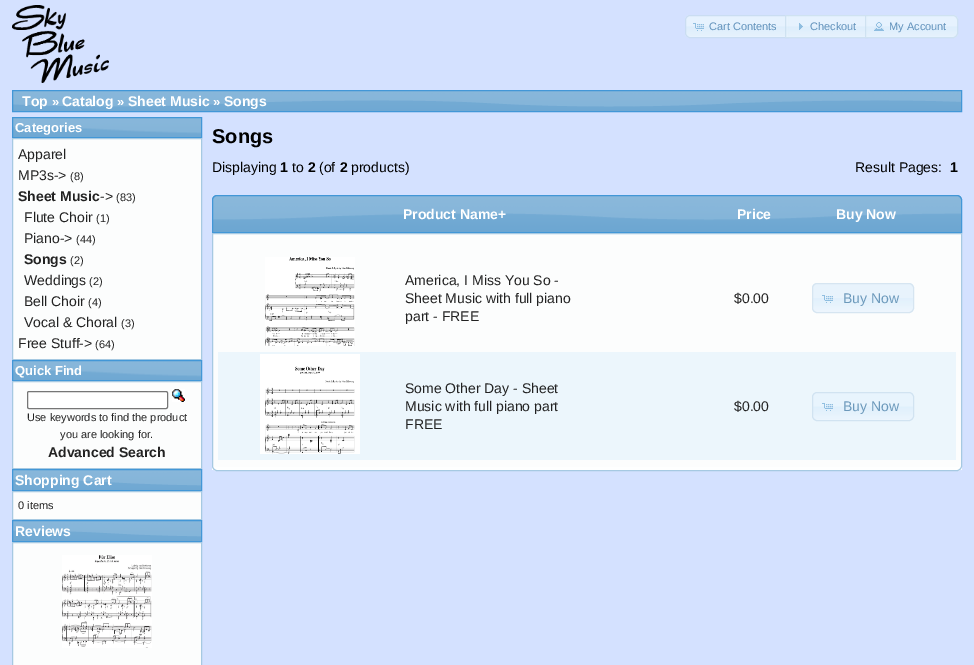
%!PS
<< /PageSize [974 665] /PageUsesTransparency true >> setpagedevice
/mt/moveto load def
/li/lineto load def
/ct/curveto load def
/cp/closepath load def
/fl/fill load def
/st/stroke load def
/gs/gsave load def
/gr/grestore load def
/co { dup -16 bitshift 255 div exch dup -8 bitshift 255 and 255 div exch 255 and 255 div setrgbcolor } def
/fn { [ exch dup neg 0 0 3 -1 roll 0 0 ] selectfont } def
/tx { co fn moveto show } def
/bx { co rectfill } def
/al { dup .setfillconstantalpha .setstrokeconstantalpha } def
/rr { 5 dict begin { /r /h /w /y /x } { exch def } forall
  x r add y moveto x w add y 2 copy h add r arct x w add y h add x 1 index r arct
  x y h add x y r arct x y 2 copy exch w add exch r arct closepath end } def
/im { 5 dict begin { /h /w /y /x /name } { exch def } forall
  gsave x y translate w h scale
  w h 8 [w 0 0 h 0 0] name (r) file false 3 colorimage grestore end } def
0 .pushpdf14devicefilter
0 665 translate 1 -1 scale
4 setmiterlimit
0 0 974 665 16#D4E1FF bx
(media/1.raw) 12 5 97 78 im
(media/2.raw) 685 15 103 23 im
16#CADDF2 co
690 15.5 mt 788.5 15.5 li 788.5 37.5 li 690 37.5 li 687.5 37.5 685.5 35.5 685.5 33 ct 685.5 20 li 685.5 17.5 687.5 15.5 690 15.5 ct cp st
(media/3.raw) 693 23 11 8 im
(media/4.raw) 785 15 83 23 im
0.7 al
16#C5DBEC co
785.5 15.5 82 22 rectstroke
1 al
(media/5.raw) 799 23 4 7 im
0.7 al
16#DFEFFC co
865 15 mt 953 15 li 956 15 958 17 958 20 ct 958 33 li 958 36 956 38 953 38 ct 865 38 li cp fl
1 al
(media/6.raw) 865 15 93 23 im
0.7 al
16#C5DBEC co
865.5 15.5 mt 953 15.5 li 955.5 15.5 957.5 17.5 957.5 20 ct 957.5 33 li 957.5 35.5 955.5 37.5 953 37.5 ct 865.5 37.5 li cp st
1 al
(media/7.raw) 874 22 10 9 im
(media/8.raw) 13 91 948 20 im
16#4297D7 co
12.5 90.5 949 21 rectstroke
(media/9.raw) 13 118 188 19 im
12.5 117.5 189 20 rectstroke
16#FCFDFD co
12.5 138.5 mt 201.5 138.5 li 201.5 359.5 li 12.5 359.5 li cp gs fl gr
16#A6C9E2 co
st
(media/9.raw) 13 361 188 19 im
16#4297D7 co
12.5 360.5 189 20 rectstroke
16#FCFDFD co
12.5 381.5 mt 201.5 381.5 li 201.5 468.5 li 12.5 468.5 li cp gs fl gr
16#A6C9E2 co
st
16#FFFFFF co
27.5 391.5 140 17 1.5 rr gs fl gr
16#767676 co
st
(media/10.raw) 172 389 13 13 im
(media/11.raw) 13 470 188 20 im
16#4297D7 co
12.5 469.5 189 21 rectstroke
16#FCFDFD co
12.5 491.5 mt 201.5 491.5 li 201.5 519.5 li 12.5 519.5 li cp gs fl gr
16#A6C9E2 co
st
(media/11.raw) 13 521 188 20 im
16#4297D7 co
12.5 520.5 189 21 rectstroke
16#FCFDFD co
12.5 542.5 mt 201.5 542.5 li 201.5 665.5 li 12.5 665.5 li cp gs fl gr
16#A6C9E2 co
st
(media/12.raw) 62 555 90 93 im
(media/13.raw) 212 195 750 37 im
16#4297D7 co
217 195.5 mt 957 195.5 li 959.5 195.5 961.5 197.5 961.5 200 ct 961.5 232.5 li 212.5 232.5 li 212.5 200 li 212.5 197.5 214.5 195.5 217 195.5 ct cp st
16#FCFDFD co
212 233 mt 962 233 li 962 466 li 962 469 960 471 957 471 ct 217 471 li 214 471 212 469 212 466 ct cp fl
212 467 750 3 16#FEFFFF bx
16#A6C9E2 co
212.5 233.5 mt 961.5 233.5 li 961.5 466 li 961.5 468.5 959.5 470.5 957 470.5 ct 217 470.5 li 214.5 470.5 212.5 468.5 212.5 466 ct cp st
(media/14.raw) 265 257 90 89 im
16#E8F3FC co
812 283 102 30 5 rr fl
(media/15.raw) 812 298 102 15 im
16#D6E5F1 co
812.5 283.5 101 29 4.5 rr st
(media/16.raw) 822 295 11 8 im
218 352 738 108 16#ECF6FC bx
(media/17.raw) 260 354 100 100 im
(media/18.raw) 812 392 102 29 im
16#D1E3F1 co
812.5 392.5 101 28 4.5 rr st
(media/19.raw) 822 403 11 8 im
(Cart Contents) 709 30 /LiberationSans-Regular 11 16#6091BB tx
(Checkout) 810 30 /LiberationSans-Regular 11 16#6091BB tx
(My Account) 889 30 /LiberationSans-Regular 11 16#6091BB tx
(Top) 22 106 /LiberationSans-Bold 14 16#FFFFFF tx
(») 52 106 /LiberationSans-Bold 13 16#FFFFFF tx
(Catalog) 62 106 /LiberationSans-Bold 14 16#FFFFFF tx
(») 117 106 /LiberationSans-Bold 13 16#FFFFFF tx
(Sheet Music) 128 106 /LiberationSans-Bold 14 16#FFFFFF tx
(») 213 106 /LiberationSans-Bold 13 16#FFFFFF tx
(Songs) 224 106 /LiberationSans-Bold 14 16#FFFFFF tx
(Categories) 15 132 /LiberationSans-Bold 13 16#FFFFFF tx
(Apparel) 18 159 /LiberationSans-Regular 14 16#222222 tx
(MP3s->) 18 180 /LiberationSans-Regular 14 16#222222 tx
(\(8\)) 70 180 /LiberationSans-Regular 11 16#222222 tx
(Sheet Music) 18 201 /LiberationSans-Bold 14 16#222222 tx
(->) 100 201 /LiberationSans-Regular 14 16#222222 tx
(\(83\)) 116 201 /LiberationSans-Regular 11 16#222222 tx
(Flute Choir) 24 222 /LiberationSans-Regular 14 16#222222 tx
(\(1\)) 96 222 /LiberationSans-Regular 11 16#222222 tx
(Piano->) 24 243 /LiberationSans-Regular 14 16#222222 tx
(\(44\)) 76 243 /LiberationSans-Regular 11 16#222222 tx
(Songs) 24 264 /LiberationSans-Bold 14 16#222222 tx
(\(2\)) 70 264 /LiberationSans-Regular 11 16#222222 tx
(Weddings) 24 285 /LiberationSans-Regular 14 16#222222 tx
(\(2\)) 89 285 /LiberationSans-Regular 11 16#222222 tx
(Bell Choir) 24 306 /LiberationSans-Regular 14 16#222222 tx
(\(4\)) 88 306 /LiberationSans-Regular 11 16#222222 tx
(Vocal & Choral) 24 327 /LiberationSans-Regular 14 16#222222 tx
(\(3\)) 121 327 /LiberationSans-Regular 11 16#222222 tx
(Free Stuff->) 18 348 /LiberationSans-Regular 14 16#222222 tx
(\(64\)) 95 348 /LiberationSans-Regular 11 16#222222 tx
(Quick Find) 15 375 /LiberationSans-Bold 13 16#FFFFFF tx
(Use keywords to find the product) 27 421 /LiberationSans-Regular 11 16#222222 tx
(you are looking for.) 60 438 /LiberationSans-Regular 11 16#222222 tx
(Advanced Search) 48 457 /LiberationSans-Bold 14 16#222222 tx
(Shopping Cart) 15 485 /LiberationSans-Bold 14 16#FFFFFF tx
(0 items) 18 509 /LiberationSans-Regular 11 16#222222 tx
(Reviews) 15 536 /LiberationSans-Bold 14 16#FFFFFF tx
(Songs) 212 143 /LiberationSans-Bold 20 16#000000 tx
(Displaying) 212 172 /LiberationSans-Regular 14 16#000000 tx
(1) 280 172 /LiberationSans-Bold 14 16#000000 tx
(to) 292 172 /LiberationSans-Regular 14 16#000000 tx
(2) 308 172 /LiberationSans-Bold 14 16#000000 tx
(\(of) 319 172 /LiberationSans-Regular 14 16#000000 tx
(2) 340 172 /LiberationSans-Bold 14 16#000000 tx
(products\)) 351 172 /LiberationSans-Regular 14 16#000000 tx
(Result Pages:) 855 172 /LiberationSans-Regular 14 16#000000 tx
(1) 950 172 /LiberationSans-Bold 14 16#000000 tx
(Product Name+) 403 219 /LiberationSans-Bold 14 16#FFFFFF tx
(Price) 737 219 /LiberationSans-Bold 14 16#FFFFFF tx
(Buy Now) 836 219 /LiberationSans-Bold 14 16#FFFFFF tx
(America, I Miss You So -) 405 285 /LiberationSans-Regular 14 16#222222 tx
(Sheet Music with full piano) 405 303 /LiberationSans-Regular 14 16#222222 tx
(part - FREE) 405 321 /LiberationSans-Regular 14 16#222222 tx
($0.00) 734 303 /LiberationSans-Regular 14 16#222222 tx
(Buy Now) 843 303 /LiberationSans-Regular 14 16#6C99BB tx
(Some Other Day - Sheet) 405 393 /LiberationSans-Regular 14 16#222222 tx
(Music with full piano part) 405 411 /LiberationSans-Regular 14 16#222222 tx
(FREE) 405 429 /LiberationSans-Regular 14 16#222222 tx
($0.00) 734 411 /LiberationSans-Regular 14 16#222222 tx
(Buy Now) 843 411 /LiberationSans-Regular 14 16#6C99BB tx
.poppdf14devicefilter showpage
